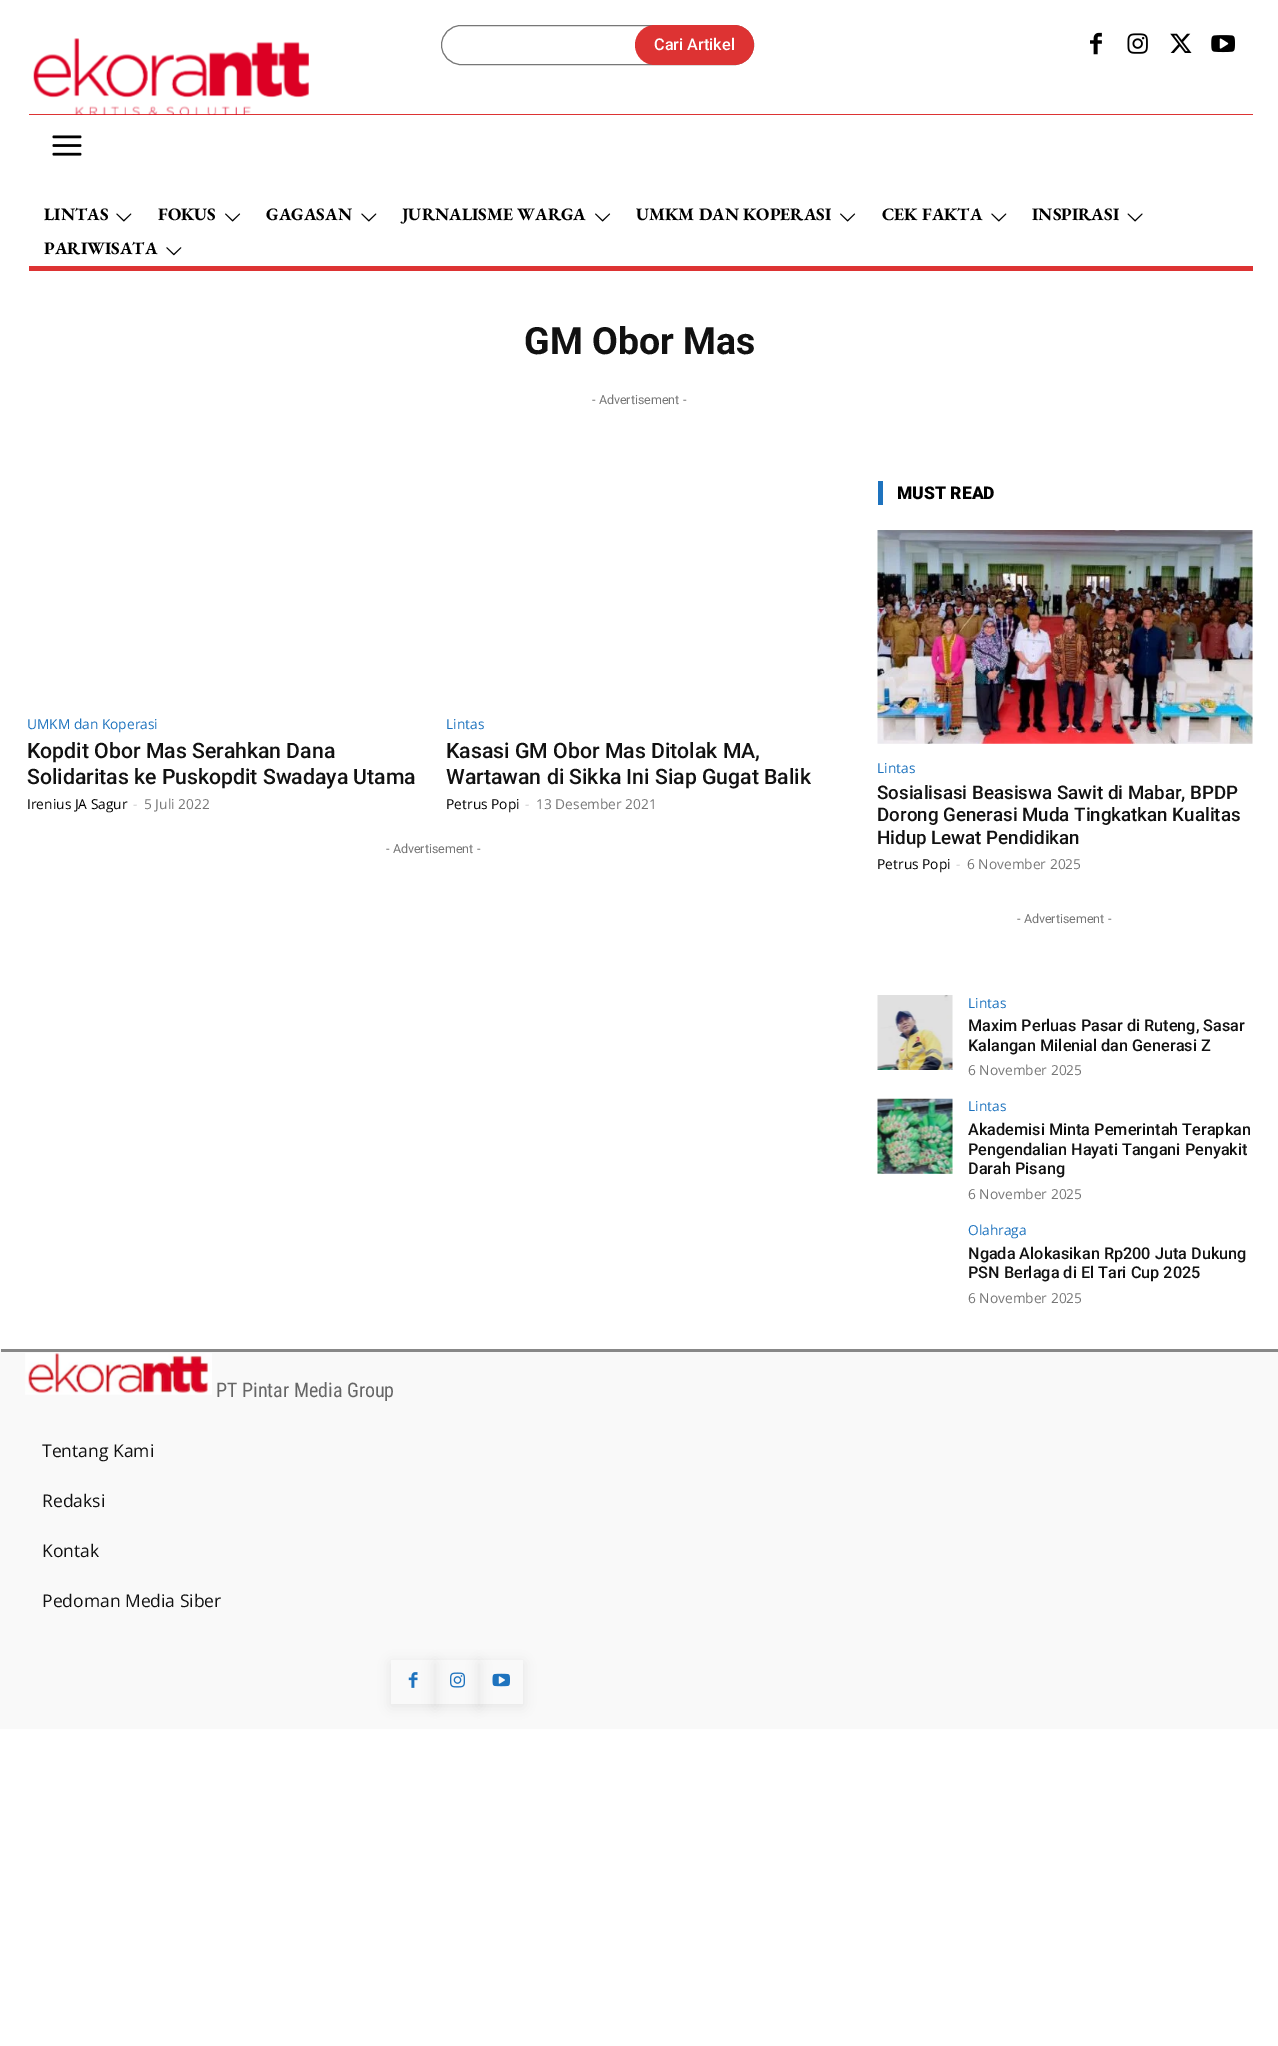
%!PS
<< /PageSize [1278 2046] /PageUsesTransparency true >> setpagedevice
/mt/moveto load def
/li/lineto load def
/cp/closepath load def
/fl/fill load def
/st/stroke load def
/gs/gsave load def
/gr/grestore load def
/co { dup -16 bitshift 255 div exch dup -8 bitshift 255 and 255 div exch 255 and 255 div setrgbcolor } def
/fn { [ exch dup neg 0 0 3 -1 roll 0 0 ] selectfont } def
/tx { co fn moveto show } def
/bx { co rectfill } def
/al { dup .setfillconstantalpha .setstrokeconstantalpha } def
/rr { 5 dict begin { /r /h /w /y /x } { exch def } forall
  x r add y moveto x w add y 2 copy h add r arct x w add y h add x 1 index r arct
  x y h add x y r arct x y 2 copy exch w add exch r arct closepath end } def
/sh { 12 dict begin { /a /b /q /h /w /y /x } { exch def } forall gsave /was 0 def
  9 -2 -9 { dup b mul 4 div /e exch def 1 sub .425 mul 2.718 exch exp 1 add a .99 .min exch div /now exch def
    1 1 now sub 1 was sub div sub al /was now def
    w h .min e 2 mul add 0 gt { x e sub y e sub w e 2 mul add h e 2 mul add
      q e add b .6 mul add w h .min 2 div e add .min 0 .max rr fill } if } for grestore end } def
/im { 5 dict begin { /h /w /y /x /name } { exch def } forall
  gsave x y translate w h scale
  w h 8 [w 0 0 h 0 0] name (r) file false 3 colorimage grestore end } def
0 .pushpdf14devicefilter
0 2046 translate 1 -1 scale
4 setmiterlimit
0 0 1278 2046 16#FFFFFF bx
29 114 1224 1 16#DD3333 bx
(media/1.raw) 33 38 276 77 im
16#777777 co
441.5 25.5 312 39 19.5 rr st
16#DD3333 co
635 25 119 40 20 rr fl
(media/2.raw) 1090 32 12 23 im
(media/3.raw) 1127 33 21 21 im
(media/4.raw) 1170 33 22 20 im
(media/5.raw) 1211 35 24 18 im
(media/6.raw) 52 135 30 21 im
(media/7.raw) 116 213 16 9 im
(media/8.raw) 225 213 16 9 im
(media/7.raw) 361 213 16 9 im
(media/8.raw) 595 213 16 9 im
(media/8.raw) 840 213 16 9 im
(media/7.raw) 991 213 16 9 im
(media/9.raw) 1127 213 16 9 im
(media/10.raw) 166 247 16 9 im
29 266 1224 5 16#DD3333 bx
878 481 5 24 16#1E73BE bx
(media/11.raw) 877 530 376 214 im
(media/12.raw) 877 995 76 75 im
(media/13.raw) 877 1098 76 76 im
0 1349 1278 380 16#F9F9F9 bx
1 1349 1277 3 16#888888 bx
(media/14.raw) 25 1353 187 42 im
gs
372 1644 mt 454 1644 li 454 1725 li 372 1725 li cp 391 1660 mt 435 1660 li 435 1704 li 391 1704 li cp eoclip newpath
16#000000 co
391 1663 44 43 0 6 .08 sh
gr
(media/15.raw) 408 1672 10 16 im
gs
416 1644 mt 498 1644 li 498 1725 li 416 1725 li cp 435 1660 mt 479 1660 li 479 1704 li 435 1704 li cp eoclip newpath
16#000000 co
435 1663 44 43 0 6 .08 sh
gr
(media/16.raw) 450 1672 15 16 im
gs
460 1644 mt 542 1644 li 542 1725 li 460 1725 li cp 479 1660 mt 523 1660 li 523 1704 li 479 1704 li cp eoclip newpath
16#000000 co
479 1663 44 43 0 6 .08 sh
gr
(media/17.raw) 492 1673 18 14 im
(Cari Artikel) 654 50 /Roboto-Medium 16.25 16#FFFFFF tx
(LINTAS) 44 220 /EBGaramond-Bold 17.5 16#000000 tx
(FOKUS) 158 220 /EBGaramond-Bold 17.5 16#000000 tx
(GAGASAN) 266 220 /EBGaramond-Bold 17.5 16#000000 tx
(JURNALISME WARGA) 402 220 /EBGaramond-Bold 17.5 16#000000 tx
(UMKM DAN KOPERASI) 636 220 /EBGaramond-Bold 17.5 16#000000 tx
(CEK FAKTA) 882 220 /EBGaramond-Bold 17.5 16#000000 tx
(INSPIRASI) 1032 220 /EBGaramond-Bold 17.5 16#000000 tx
(PARIWISATA) 44 254 /EBGaramond-Bold 17.5 16#000000 tx
(GM Obor Mas) 524 354 /Roboto-Bold 37.5 16#111111 tx
(- Advertisement -) 592 404 /Roboto-Regular 12.5 16#767676 tx
(UMKM dan Koperasi) 27 729 /OpenSans-Regular 13.75 16#1E73BE tx
(Kopdit Obor Mas Serahkan Dana) 27 758 /Roboto-Medium 21.25 16#111111 tx
(Solidaritas ke Puskopdit Swadaya Utama) 27 784 /Roboto-Medium 21.25 16#111111 tx
(Irenius JA Sagur) 27 809 /OpenSans-Regular 13.75 16#000000 tx
(-) 133 809 /OpenSans-Regular 13.75 16#CCCCCC tx
(5 Juli 2022) 144 809 /OpenSans-Regular 13.75 16#767676 tx
(Lintas) 446 729 /OpenSans-Regular 13.75 16#1E73BE tx
(Kasasi GM Obor Mas Ditolak MA,) 446 758 /Roboto-Medium 21.25 16#111111 tx
(Wartawan di Sikka Ini Siap Gugat Balik) 446 784 /Roboto-Medium 21.25 16#111111 tx
(Petrus Popi) 446 809 /OpenSans-Regular 13.75 16#000000 tx
(-) 525 809 /OpenSans-Regular 13.75 16#CCCCCC tx
(13 Desember 2021) 536 809 /OpenSans-Regular 13.75 16#767676 tx
(- Advertisement -) 386 853 /Roboto-Regular 12.5 16#767676 tx
(MUST READ) 897 499 /Roboto-Black 17.5 16#000000 tx
(Lintas) 877 773 /OpenSans-Regular 13.75 16#1E73BE tx
(Sosialisasi Beasiswa Sawit di Mabar, BPDP) 877 799 /Roboto-Medium 18.75 16#111111 tx
(Dorong Generasi Muda Tingkatkan Kualitas) 877 821 /Roboto-Medium 18.75 16#111111 tx
(Hidup Lewat Pendidikan) 877 844 /Roboto-Medium 18.75 16#111111 tx
(Petrus Popi) 877 869 /OpenSans-Regular 13.75 16#000000 tx
(-) 956 869 /OpenSans-Regular 13.75 16#CCCCCC tx
(6 November 2025) 967 869 /OpenSans-Regular 13.75 16#767676 tx
(- Advertisement -) 1017 923 /Roboto-Regular 12.5 16#767676 tx
(Lintas) 968 1008 /OpenSans-Regular 13.75 16#1E73BE tx
(Maxim Perluas Pasar di Ruteng, Sasar) 968 1031 /Roboto-Medium 16.25 16#111111 tx
(Kalangan Milenial dan Generasi Z) 968 1051 /Roboto-Medium 16.25 16#111111 tx
(6 November 2025) 968 1075 /OpenSans-Regular 13.75 16#767676 tx
(Lintas) 968 1111 /OpenSans-Regular 13.75 16#1E73BE tx
(Akademisi Minta Pemerintah Terapkan) 968 1135 /Roboto-Medium 16.25 16#111111 tx
(Pengendalian Hayati Tangani Penyakit) 968 1155 /Roboto-Medium 16.25 16#111111 tx
(Darah Pisang) 968 1174 /Roboto-Medium 16.25 16#111111 tx
(6 November 2025) 968 1199 /OpenSans-Regular 13.75 16#767676 tx
(Olahraga) 968 1235 /OpenSans-Regular 13.75 16#1E73BE tx
(Ngada Alokasikan Rp200 Juta Dukung) 968 1259 /Roboto-Medium 16.25 16#111111 tx
(PSN Berlaga di El Tari Cup 2025) 968 1278 /Roboto-Medium 16.25 16#111111 tx
(6 November 2025) 968 1303 /OpenSans-Regular 13.75 16#767676 tx
(PT Pintar Media Group) 216 1397 /RobotoCondensed-Regular 20 16#666666 tx
(Tentang Kami) 42 1457 /OpenSans-Regular 17.5 16#111111 tx
(Redaksi) 42 1507 /OpenSans-Regular 17.5 16#111111 tx
(Kontak) 42 1557 /OpenSans-Regular 17.5 16#111111 tx
(Pedoman Media Siber) 42 1607 /OpenSans-Regular 17.5 16#111111 tx
.poppdf14devicefilter showpage
